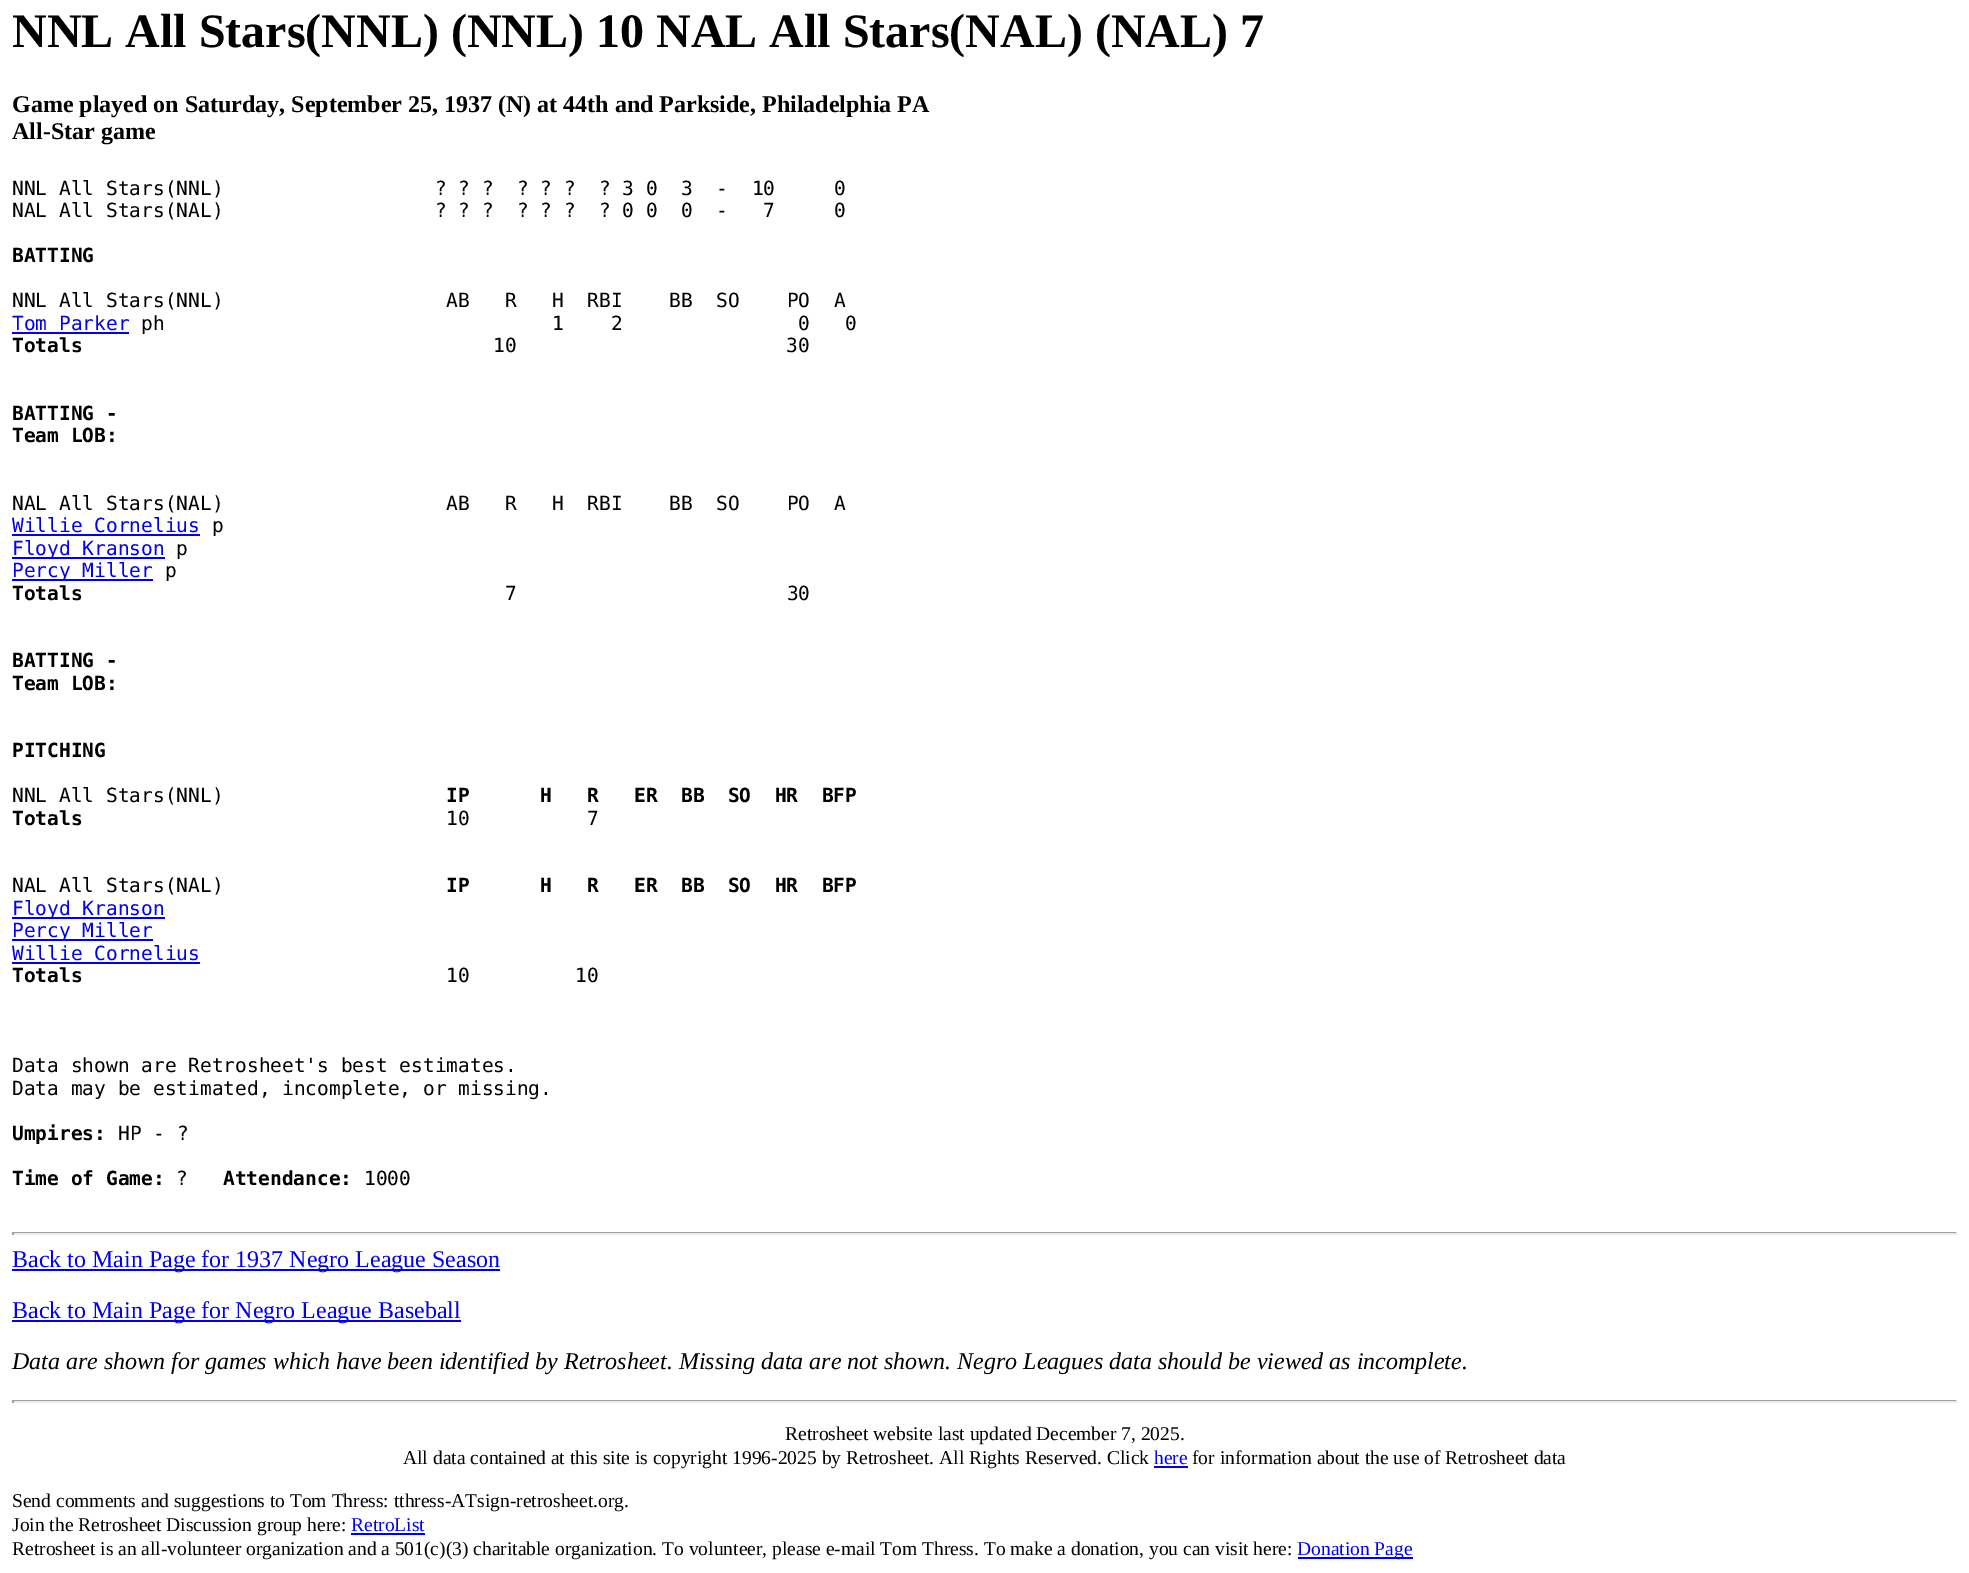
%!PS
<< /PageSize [1969 1573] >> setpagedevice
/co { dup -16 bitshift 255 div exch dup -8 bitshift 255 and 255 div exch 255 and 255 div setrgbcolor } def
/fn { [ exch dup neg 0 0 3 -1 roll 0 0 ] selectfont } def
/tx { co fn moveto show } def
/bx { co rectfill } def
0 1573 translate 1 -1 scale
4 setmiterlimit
0 0 1969 1573 16#FFFFFF bx
12 332 117 2 16#0000EE bx
12 534 188 2 16#0000EE bx
12 557 153 2 16#0000EE bx
12 579 141 2 16#0000EE bx
12 917 153 2 16#0000EE bx
12 939 141 2 16#0000EE bx
12 962 188 2 16#0000EE bx
12 1232 1946 1 16#9F9F9F bx
1956 1232 2 3 16#EEEEEE bx
12 1233 1946 2 16#EEEEEE bx
12 1232 2 3 16#9F9F9F bx
12 1269 488 2 16#0000EE bx
12 1320 449 2 16#0000EE bx
12 1400 1946 1 16#9F9F9F bx
1956 1400 2 3 16#EEEEEE bx
12 1401 1946 2 16#EEEEEE bx
12 1400 2 3 16#9F9F9F bx
1154 1466 34 2 16#0000EE bx
351 1533 74 2 16#0000EE bx
1298 1557 115 2 16#0000EE bx
(NNL All Stars\(NNL\) \(NNL\) 10 NAL All Stars\(NAL\) \(NAL\) 7) 12 47 /LiberationSerif-Bold 48 16#000000 tx
(Game played on Saturday, September 25, 1937 \(N\) at 44th and Parkside, Philadelphia PA) 12 112 /LiberationSerif-Bold 24 16#000000 tx
(All-Star game) 12 139 /LiberationSerif-Bold 24 16#000000 tx
(NNL All Stars\(NNL\)                  ? ? ?  ? ? ?  ? 3 0  3  -  10     0) 12 195 /DejaVuSansMono-Regular 19.5 16#000000 tx
(NAL All Stars\(NAL\)                  ? ? ?  ? ? ?  ? 0 0  0  -   7     0) 12 217 /DejaVuSansMono-Regular 19.5 16#000000 tx
(BATTING) 12 262 /DejaVuSansMono-Bold 19.5 16#000000 tx
(NNL All Stars\(NNL\)                   AB   R   H  RBI    BB  SO    PO  A) 12 307 /DejaVuSansMono-Regular 19.5 16#000000 tx
(Tom Parker) 12 330 /DejaVuSansMono-Regular 19.5 16#0000EE tx
(ph                                 1    2               0   0) 141 330 /DejaVuSansMono-Regular 19.5 16#000000 tx
(Totals) 12 352 /DejaVuSansMono-Bold 19.5 16#000000 tx
(10                       30) 493 352 /DejaVuSansMono-Regular 19.5 16#000000 tx
(BATTING -) 12 420 /DejaVuSansMono-Bold 19.5 16#000000 tx
(Team LOB:) 12 442 /DejaVuSansMono-Bold 19.5 16#000000 tx
(NAL All Stars\(NAL\)                   AB   R   H  RBI    BB  SO    PO  A) 12 510 /DejaVuSansMono-Regular 19.5 16#000000 tx
(Willie Cornelius) 12 532 /DejaVuSansMono-Regular 19.5 16#0000EE tx
(p) 212 532 /DejaVuSansMono-Regular 19.5 16#000000 tx
(Floyd Kranson) 12 555 /DejaVuSansMono-Regular 19.5 16#0000EE tx
(p) 176 555 /DejaVuSansMono-Regular 19.5 16#000000 tx
(Percy Miller) 12 577 /DejaVuSansMono-Regular 19.5 16#0000EE tx
(p) 165 577 /DejaVuSansMono-Regular 19.5 16#000000 tx
(Totals) 12 600 /DejaVuSansMono-Bold 19.5 16#000000 tx
(7                       30) 505 600 /DejaVuSansMono-Regular 19.5 16#000000 tx
(BATTING -) 12 667 /DejaVuSansMono-Bold 19.5 16#000000 tx
(Team LOB:) 12 690 /DejaVuSansMono-Bold 19.5 16#000000 tx
(PITCHING) 12 757 /DejaVuSansMono-Bold 19.5 16#000000 tx
(NNL All Stars\(NNL\)) 12 802 /DejaVuSansMono-Regular 19.5 16#000000 tx
(IP      H   R   ER  BB  SO  HR  BFP) 446 802 /DejaVuSansMono-Bold 19.5 16#000000 tx
(Totals) 12 825 /DejaVuSansMono-Bold 19.5 16#000000 tx
(10          7) 446 825 /DejaVuSansMono-Regular 19.5 16#000000 tx
(NAL All Stars\(NAL\)) 12 892 /DejaVuSansMono-Regular 19.5 16#000000 tx
(IP      H   R   ER  BB  SO  HR  BFP) 446 892 /DejaVuSansMono-Bold 19.5 16#000000 tx
(Floyd Kranson) 12 915 /DejaVuSansMono-Regular 19.5 16#0000EE tx
(Percy Miller) 12 937 /DejaVuSansMono-Regular 19.5 16#0000EE tx
(Willie Cornelius) 12 960 /DejaVuSansMono-Regular 19.5 16#0000EE tx
(Totals) 12 982 /DejaVuSansMono-Bold 19.5 16#000000 tx
(10         10) 446 982 /DejaVuSansMono-Regular 19.5 16#000000 tx
(Data shown are Retrosheet's best estimates.) 12 1072 /DejaVuSansMono-Regular 19.5 16#000000 tx
(Data may be estimated, incomplete, or missing.) 12 1095 /DejaVuSansMono-Regular 19.5 16#000000 tx
(Umpires:) 12 1140 /DejaVuSansMono-Bold 19.5 16#000000 tx
(HP - ?) 118 1140 /DejaVuSansMono-Regular 19.5 16#000000 tx
(Time of Game:) 12 1185 /DejaVuSansMono-Bold 19.5 16#000000 tx
(?) 176 1185 /DejaVuSansMono-Regular 19.5 16#000000 tx
(Attendance:) 223 1185 /DejaVuSansMono-Bold 19.5 16#000000 tx
(1000) 364 1185 /DejaVuSansMono-Regular 19.5 16#000000 tx
(Back to Main Page for 1937 Negro League Season) 12 1267 /LiberationSerif-Regular 24 16#0000EE tx
(Back to Main Page for Negro League Baseball) 12 1318 /LiberationSerif-Regular 24 16#0000EE tx
(Data are shown for games which have been identified by Retrosheet. Missing data are not shown. Negro Leagues data should be viewed as incomplete.) 12 1369 /LiberationSerif-Italic 24 16#000000 tx
(Retrosheet website last updated December 7, 2025.) 785 1440 /LiberationSerif-Regular 19.5 16#000000 tx
(All data contained at this site is copyright 1996-2025 by Retrosheet. All Rights Reserved. Click) 403 1464 /LiberationSerif-Regular 19.5 16#000000 tx
(here) 1154 1464 /LiberationSerif-Regular 19.5 16#0000EE tx
(for information about the use of Retrosheet data) 1192 1464 /LiberationSerif-Regular 19.5 16#000000 tx
(Send comments and suggestions to Tom Thress: tthress-ATsign-retrosheet.org.) 12 1507 /LiberationSerif-Regular 19.5 16#000000 tx
(Join the Retrosheet Discussion group here:) 12 1531 /LiberationSerif-Regular 19.5 16#000000 tx
(RetroList) 351 1531 /LiberationSerif-Regular 19.5 16#0000EE tx
(Retrosheet is an all-volunteer organization and a 501\(c\)\(3\) charitable organization. To volunteer, please e-mail Tom Thress. To make a donation, you can visit here:) 12 1555 /LiberationSerif-Regular 19.5 16#000000 tx
(Donation Page) 1297 1555 /LiberationSerif-Regular 19.5 16#0000EE tx
showpage
